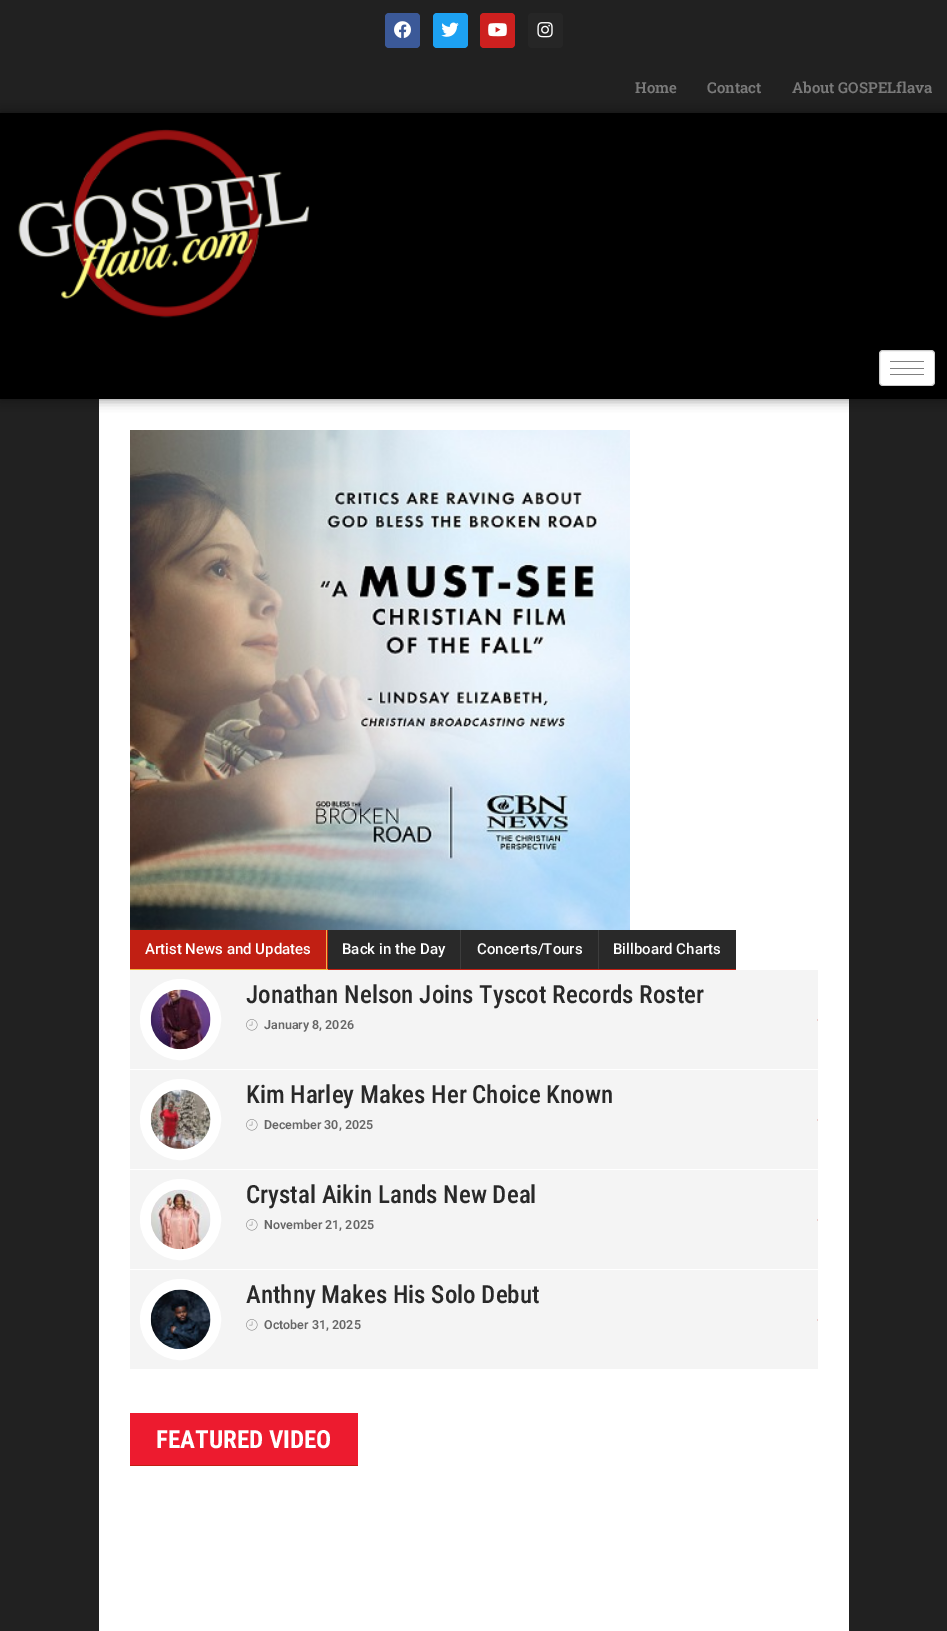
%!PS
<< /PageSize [947 1631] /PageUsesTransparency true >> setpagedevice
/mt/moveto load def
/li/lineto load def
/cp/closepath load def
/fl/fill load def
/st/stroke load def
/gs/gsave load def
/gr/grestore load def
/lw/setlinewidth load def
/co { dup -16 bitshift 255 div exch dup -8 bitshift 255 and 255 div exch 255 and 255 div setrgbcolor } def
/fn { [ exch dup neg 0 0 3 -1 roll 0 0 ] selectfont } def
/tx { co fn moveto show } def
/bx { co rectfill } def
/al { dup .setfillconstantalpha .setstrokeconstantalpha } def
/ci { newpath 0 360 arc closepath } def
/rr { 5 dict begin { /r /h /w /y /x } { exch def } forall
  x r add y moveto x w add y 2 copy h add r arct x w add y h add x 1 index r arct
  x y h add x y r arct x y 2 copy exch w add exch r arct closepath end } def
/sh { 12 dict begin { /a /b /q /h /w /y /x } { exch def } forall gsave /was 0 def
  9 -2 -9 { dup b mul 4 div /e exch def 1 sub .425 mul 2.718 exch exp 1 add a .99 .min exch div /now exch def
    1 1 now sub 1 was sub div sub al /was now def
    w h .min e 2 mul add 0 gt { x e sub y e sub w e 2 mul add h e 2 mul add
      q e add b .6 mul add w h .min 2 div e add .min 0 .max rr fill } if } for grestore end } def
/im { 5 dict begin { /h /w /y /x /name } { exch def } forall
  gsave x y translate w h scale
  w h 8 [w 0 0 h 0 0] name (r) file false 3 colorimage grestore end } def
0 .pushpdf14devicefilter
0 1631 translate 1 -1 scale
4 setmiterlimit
0 0 947 1631 16#212121 bx
16#3B5998 co
385 13 35 35 4 rr fl
(media/1.raw) 394 21 17 17 im
16#1DA1F2 co
433 13 35 35 4 rr fl
(media/2.raw) 441 22 18 15 im
16#CD201F co
480 13 35 35 4 rr fl
(media/3.raw) 488 23 19 14 im
16#262626 co
528 13 35 35 4 rr fl
(media/4.raw) 537 22 16 16 im
99 399 750 1232 16#FFFFFF bx
16#000000 co
0 113 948 286 0 6 .5 sh
0 113 947 286 16#000000 bx
(media/5.raw) 18 129 292 189 im
16#FFFFFF co
879 350 56 36 4 rr fl
0.2 al
16#000000 co
879.5 350.5 55 35 3.5 rr st
1 al
890 361 34 1 16#808080 bx
890 368 34 1 16#808080 bx
890 374 34 1 16#808080 bx
(media/6.raw) 130 430 500 500 im
130 930 198 39 16#C11F13 bx
326 930 1 40 16#F2B541 bx
130 969 198 1 16#F2B541 bx
328 930 132 39 16#292929 bx
460 930 1 40 16#3D3D3D bx
328 969 133 1 16#C11F13 bx
461 930 137 39 16#292929 bx
598 930 1 40 16#3D3D3D bx
461 969 275 1 16#C11F13 bx
599 930 137 39 16#292929 bx
130 970 688 99 16#F4F4F4 bx
16#FFFFFF co
180.5 1019.5 37.5 ci gs fl gr
6 lw
st
(media/7.raw) 150 989 61 61 im
1 lw
146.5 985.5 66 65 32.5 rr st
(media/8.raw) 246 1019 12 12 im
gs
130 970 688 99 rectclip
16#C11F13 co
830 1007.5 mt 830 1032.5 li 817.5 1020 li cp fl
gr
130 1070 688 99 16#F4F4F4 bx
16#FFFFFF co
180.5 1119.5 37.5 ci gs fl gr
6 lw
st
(media/9.raw) 150 1089 61 61 im
1 lw
146.5 1085.5 66 65 32.5 rr st
(media/8.raw) 246 1119 12 12 im
gs
130 1070 688 99 rectclip
16#C11F13 co
830 1107.5 mt 830 1132.5 li 817.5 1120 li cp fl
gr
130 1170 688 99 16#F4F4F4 bx
16#FFFFFF co
180.5 1219.5 37.5 ci gs fl gr
6 lw
st
(media/10.raw) 151 1189 60 61 im
1 lw
146.5 1185.5 66 65 32.5 rr st
(media/8.raw) 246 1219 12 12 im
gs
130 1170 688 99 rectclip
16#C11F13 co
830 1207.5 mt 830 1232.5 li 817.5 1220 li cp fl
gr
130 1270 688 99 16#F4F4F4 bx
16#FFFFFF co
180.5 1319.5 37.5 ci gs fl gr
6 lw
st
(media/11.raw) 150 1289 61 61 im
1 lw
146.5 1285.5 66 65 32.5 rr st
(media/8.raw) 246 1319 12 12 im
gs
130 1270 688 99 rectclip
16#C11F13 co
830 1307.5 mt 830 1332.5 li 817.5 1320 li cp fl
gr
130 1413 228 52 16#ED1B2F bx
130 1465 228 1 16#C11F13 bx
(Home) 635 93 /RobotoSlab-SemiBold 15 16#7A7A7A tx
(Contact) 707 93 /RobotoSlab-SemiBold 15 16#7A7A7A tx
(About GOSPELflava) 792 93 /RobotoSlab-SemiBold 15 16#7A7A7A tx
(Artist News and Updates) 145 954 /Roboto-Medium 15 16#FFFFFF tx
(Back in the Day) 342 954 /Roboto-Medium 15 16#FFFFFF tx
(Concerts/Tours) 477 954 /Roboto-Medium 15 16#FFFFFF tx
(Billboard Charts) 613 954 /Roboto-Medium 15 16#FFFFFF tx
(Jonathan Nelson Joins Tyscot Records Roster) 246 1003 /RobotoCondensed-Medium 25 16#292929 tx
(January 8, 2026) 264 1029 /Roboto-SemiBold 12.5 16#666666 tx
(Kim Harley Makes Her Choice Known) 246 1103 /RobotoCondensed-Medium 25 16#292929 tx
(December 30, 2025) 264 1129 /Roboto-SemiBold 12.5 16#666666 tx
(Crystal Aikin Lands New Deal) 246 1203 /RobotoCondensed-Medium 25 16#292929 tx
(November 21, 2025) 264 1229 /Roboto-SemiBold 12.5 16#666666 tx
(Anthny Makes His Solo Debut) 246 1303 /RobotoCondensed-Medium 25 16#292929 tx
(October 31, 2025) 264 1329 /Roboto-SemiBold 12.5 16#666666 tx
(FEATURED VIDEO) 156 1448 /RobotoCondensed-Bold 25 16#FFFFFF tx
.poppdf14devicefilter showpage
